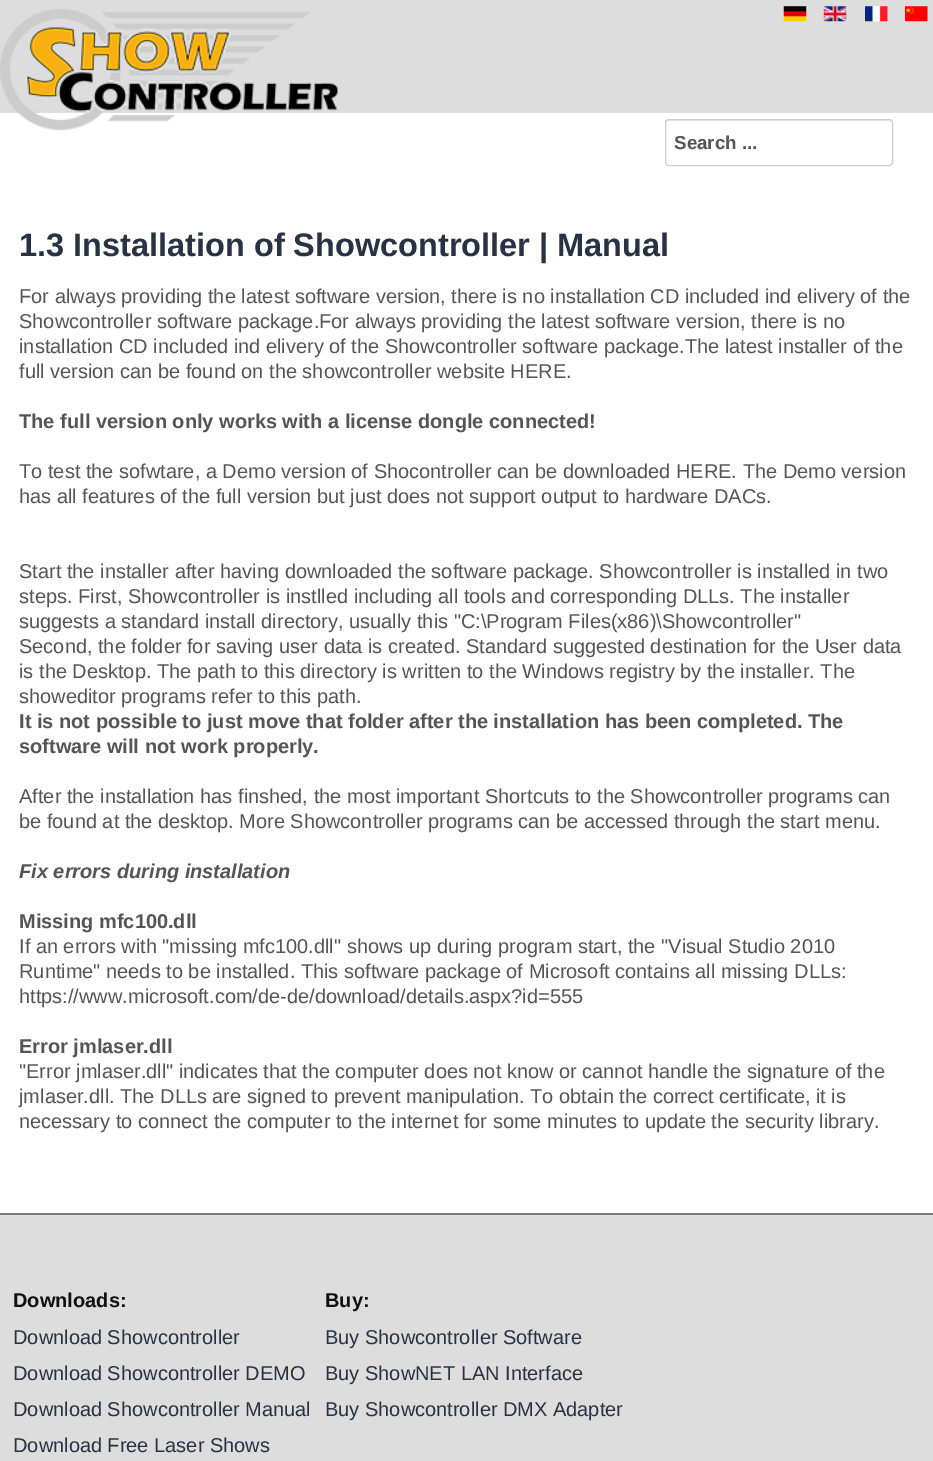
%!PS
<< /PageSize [933 1461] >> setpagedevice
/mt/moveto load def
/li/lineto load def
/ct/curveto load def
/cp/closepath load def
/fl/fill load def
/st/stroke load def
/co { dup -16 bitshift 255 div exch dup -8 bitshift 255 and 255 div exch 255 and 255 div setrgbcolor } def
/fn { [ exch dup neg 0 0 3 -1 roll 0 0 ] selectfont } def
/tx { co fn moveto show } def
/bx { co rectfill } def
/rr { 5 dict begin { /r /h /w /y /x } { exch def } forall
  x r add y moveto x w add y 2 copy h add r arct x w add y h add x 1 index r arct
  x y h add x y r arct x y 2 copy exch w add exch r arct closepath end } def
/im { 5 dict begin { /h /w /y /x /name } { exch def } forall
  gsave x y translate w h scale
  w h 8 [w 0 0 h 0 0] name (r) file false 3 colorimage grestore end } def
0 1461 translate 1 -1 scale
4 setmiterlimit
0 0 933 1461 16#FFFFFF bx
0 0 933 113 16#DDDDDD bx
(media/1.raw) 0 8 338 123 im
(media/2.raw) 783 6 24 16 im
(media/3.raw) 823 6 24 16 im
(media/4.raw) 865 6 23 16 im
(media/5.raw) 905 6 23 16 im
16#ECECEC co
669 121 mt 889 121 li 890 121 891 122 891 124 ct 891 122 891 120 888 120 ct 668 120 li 666 120 666 122 666 124 ct 666 122 667 121 669 121 ct cp fl
16#CCCCCC co
665.5 119.5 227 46 3.5 rr st
0 1215 933 246 16#DDDDDD bx
0 1213 933 2 16#777777 bx
(Search ...) 674 149 /LiberationSans-Bold 18.75 16#555555 tx
(1.3 Installation of Showcontroller | Manual) 19 256 /LiberationSans-Bold 32.5 16#283242 tx
(For always providing the latest software version, there is no installation CD included ind elivery of the) 19 303 /LiberationSans-Regular 20 16#555555 tx
(Showcontroller software package.For always providing the latest software version, there is no) 19 328 /LiberationSans-Regular 20 16#555555 tx
(installation CD included ind elivery of the Showcontroller software package.The latest installer of the) 19 353 /LiberationSans-Regular 20 16#555555 tx
(full version can be found on the showcontroller website HERE.) 19 378 /LiberationSans-Regular 20 16#555555 tx
(The full version only works with a license dongle connected!) 19 428 /LiberationSans-Bold 20 16#555555 tx
(To test the sofwtare, a Demo version of Shocontroller can be downloaded HERE. The Demo version) 19 478 /LiberationSans-Regular 20 16#555555 tx
(has all features of the full version but just does not support output to hardware DACs.) 19 503 /LiberationSans-Regular 20 16#555555 tx
(Start the installer after having downloaded the software package. Showcontroller is installed in two) 19 578 /LiberationSans-Regular 20 16#555555 tx
(steps. First, Showcontroller is instlled including all tools and corresponding DLLs. The installer) 19 603 /LiberationSans-Regular 20 16#555555 tx
(suggests a standard install directory, usually this "C:\\Program Files\(x86\)\\Showcontroller") 19 628 /LiberationSans-Regular 20 16#555555 tx
(Second, the folder for saving user data is created. Standard suggested destination for the User data) 19 653 /LiberationSans-Regular 20 16#555555 tx
(is the Desktop. The path to this directory is written to the Windows registry by the installer. The) 19 678 /LiberationSans-Regular 20 16#555555 tx
(showeditor programs refer to this path.) 19 703 /LiberationSans-Regular 20 16#555555 tx
(It is not possible to just move that folder after the installation has been completed. The) 19 728 /LiberationSans-Bold 20 16#555555 tx
(software will not work properly.) 19 753 /LiberationSans-Bold 20 16#555555 tx
(After the installation has finshed, the most important Shortcuts to the Showcontroller programs can) 19 803 /LiberationSans-Regular 20 16#555555 tx
(be found at the desktop. More Showcontroller programs can be accessed through the start menu.) 19 828 /LiberationSans-Regular 20 16#555555 tx
(Fix errors during installation) 19 878 /LiberationSans-BoldItalic 20 16#555555 tx
(Missing mfc100.dll) 19 928 /LiberationSans-Bold 20 16#555555 tx
(If an errors with "missing mfc100.dll" shows up during program start, the "Visual Studio 2010) 19 953 /LiberationSans-Regular 20 16#555555 tx
(Runtime" needs to be installed. This software package of Microsoft contains all missing DLLs:) 19 978 /LiberationSans-Regular 20 16#555555 tx
(https://www.microsoft.com/de-de/download/details.aspx?id=555) 19 1003 /LiberationSans-Regular 20 16#555555 tx
(Error jmlaser.dll) 19 1053 /LiberationSans-Bold 20 16#555555 tx
("Error jmlaser.dll" indicates that the computer does not know or cannot handle the signature of the) 19 1078 /LiberationSans-Regular 20 16#555555 tx
(jmlaser.dll. The DLLs are signed to prevent manipulation. To obtain the correct certificate, it is) 19 1103 /LiberationSans-Regular 20 16#555555 tx
(necessary to connect the computer to the internet for some minutes to update the security library.) 19 1128 /LiberationSans-Regular 20 16#555555 tx
(Downloads:) 13 1307 /LiberationSans-Bold 20 16#111111 tx
(Download Showcontroller) 13 1344 /LiberationSans-Regular 20 16#283242 tx
(Download Showcontroller DEMO) 13 1380 /LiberationSans-Regular 20 16#283242 tx
(Download Showcontroller Manual) 13 1416 /LiberationSans-Regular 20 16#283242 tx
(Download Free Laser Shows) 13 1452 /LiberationSans-Regular 20 16#283242 tx
(Buy:) 325 1307 /LiberationSans-Bold 20 16#111111 tx
(Buy Showcontroller Software) 325 1344 /LiberationSans-Regular 20 16#283242 tx
(Buy ShowNET LAN Interface) 325 1380 /LiberationSans-Regular 20 16#283242 tx
(Buy Showcontroller DMX Adapter) 325 1416 /LiberationSans-Regular 20 16#283242 tx
showpage
